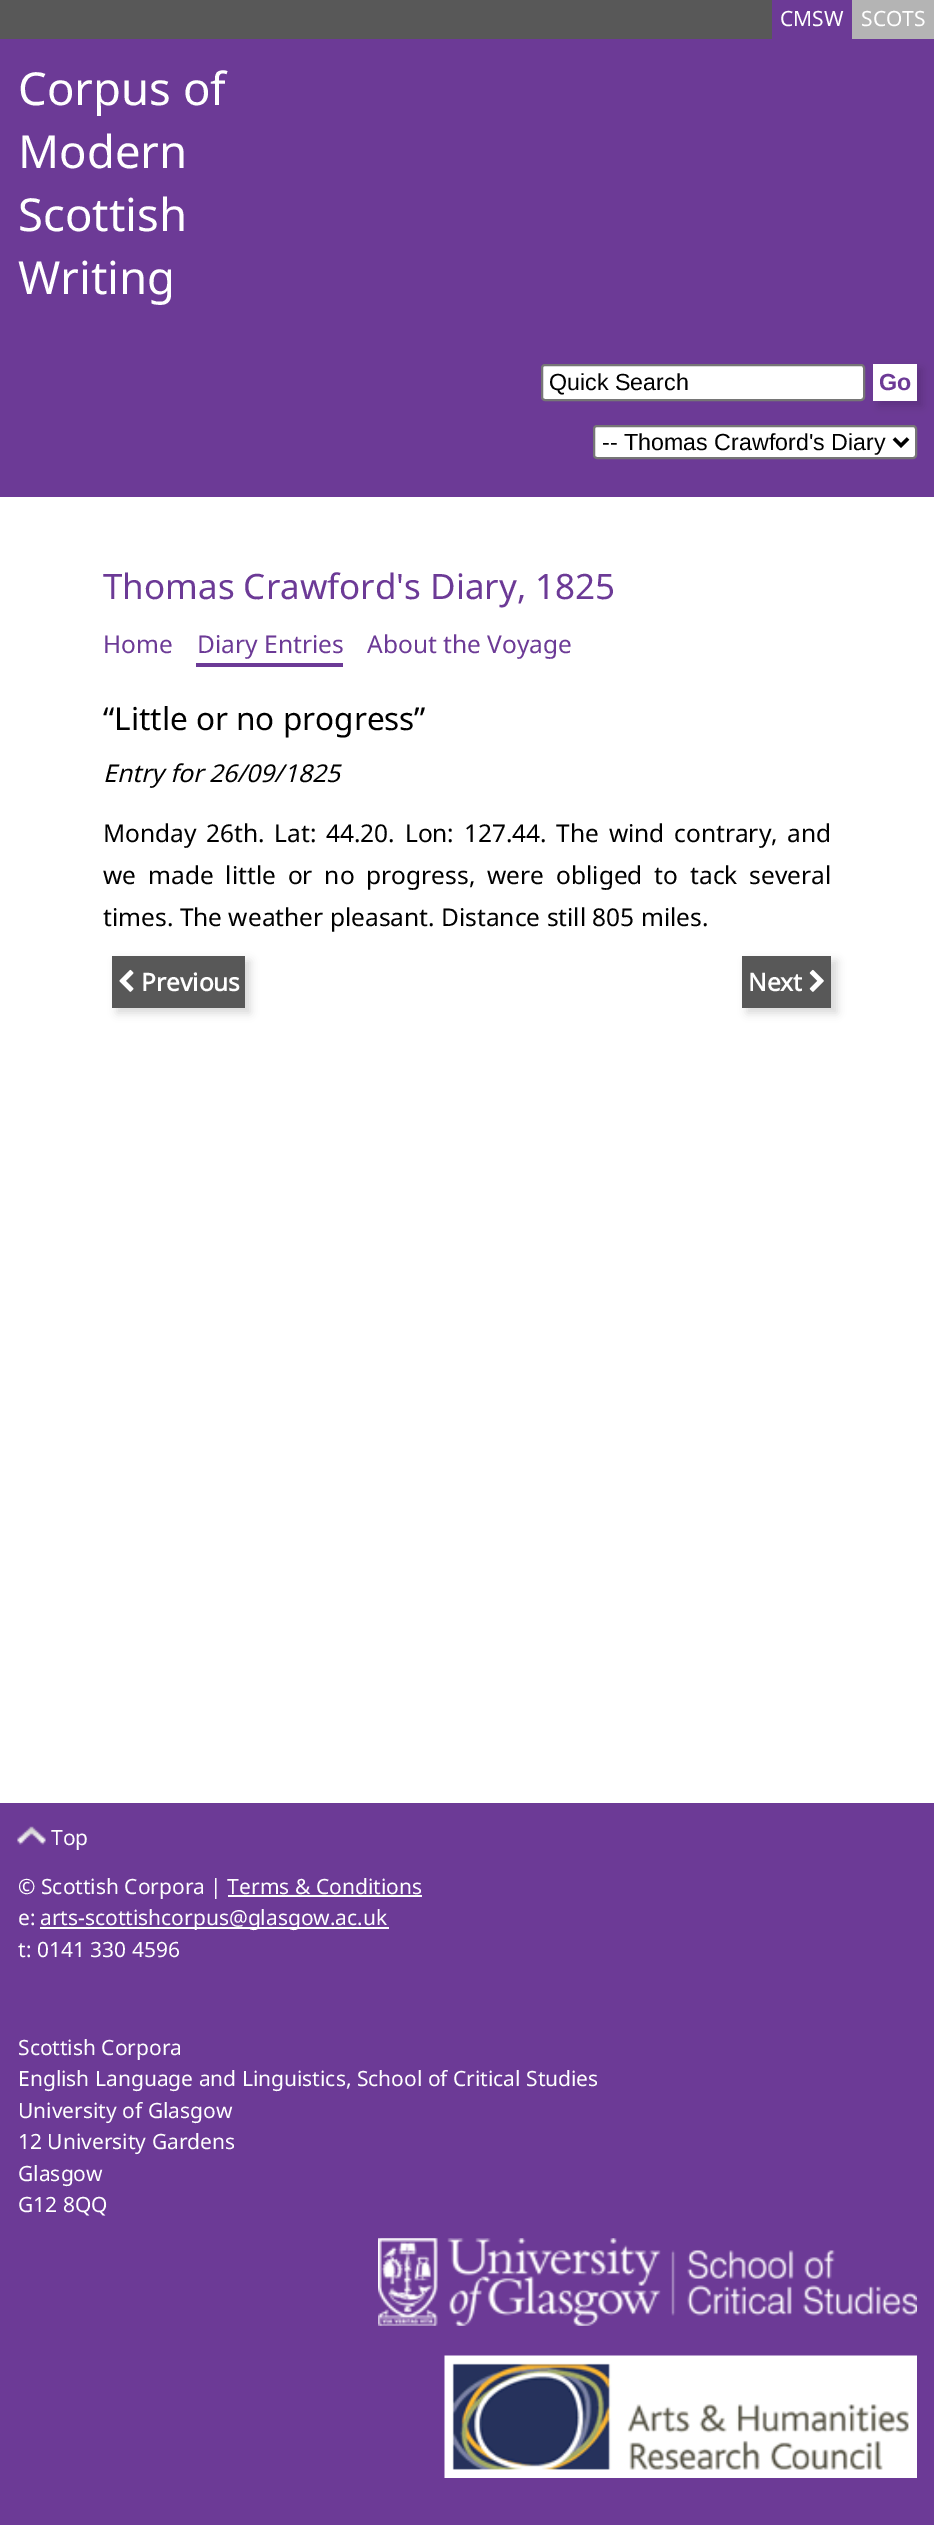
%!PS
<< /PageSize [934 2525] /PageUsesTransparency true >> setpagedevice
/mt/moveto load def
/li/lineto load def
/fl/fill load def
/st/stroke load def
/gs/gsave load def
/gr/grestore load def
/lw/setlinewidth load def
/co { dup -16 bitshift 255 div exch dup -8 bitshift 255 and 255 div exch 255 and 255 div setrgbcolor } def
/fn { [ exch dup neg 0 0 3 -1 roll 0 0 ] selectfont } def
/tx { co fn moveto show } def
/bx { co rectfill } def
/al { dup .setfillconstantalpha .setstrokeconstantalpha } def
/rr { 5 dict begin { /r /h /w /y /x } { exch def } forall
  x r add y moveto x w add y 2 copy h add r arct x w add y h add x 1 index r arct
  x y h add x y r arct x y 2 copy exch w add exch r arct closepath end } def
/sh { 12 dict begin { /a /b /q /h /w /y /x } { exch def } forall gsave /was 0 def
  9 -2 -9 { dup b mul 4 div /e exch def 1 sub .425 mul 2.718 exch exp 1 add a .99 .min exch div /now exch def
    1 1 now sub 1 was sub div sub al /was now def
    w h .min e 2 mul add 0 gt { x e sub y e sub w e 2 mul add h e 2 mul add
      q e add b .6 mul add w h .min 2 div e add .min 0 .max rr fill } if } for grestore end } def
/im { 5 dict begin { /h /w /y /x /name } { exch def } forall
  gsave x y translate w h scale
  w h 8 [w 0 0 h 0 0] name (r) file false 3 colorimage grestore end } def
0 .pushpdf14devicefilter
0 2525 translate 1 -1 scale
4 setmiterlimit
0 0 934 2525 16#6C3A96 bx
0 0 772 39 16#585858 bx
852 0 82 39 16#B4B4B4 bx
16#FFFFFF co
542 365 322 35 3 rr gs fl gr
16#767676 co
2 lw
st
16#000000 co
879 369 43 37 0 4.5 .15 sh
873 364 44 37 16#FFFFFF bx
594 426 322 32 3 rr gs fl gr
16#767676 co
st
16#000000 co
3.5 lw
894 438.5 mt 901 445.5 li 908 438.5 li st
0 497 934 1306 16#FFFFFF bx
196 663 147 4 16#6C3A96 bx
16#000000 co
117 961 133 52 0 4.5 .15 sh
112 956 133 52 16#585858 bx
(media/1.raw) 119 969 15 23 im
16#000000 co
747 961 90 52 0 4.5 .15 sh
742 956 89 52 16#585858 bx
(media/2.raw) 809 969 15 23 im
(media/3.raw) 17 1826 29 19 im
228 1895 194 2 16#FFFFFF bx
40 1927 349 2 16#FFFFFF bx
(media/4.raw) 378 2238 539 88 im
(media/5.raw) 444 2355 473 123 im
(CMSW) 780 26 /NotoSans-Regular 21 16#FFFFFF tx
(SCOTS) 861 26 /NotoSans-Regular 21 16#FFFFFF tx
(Corpus of) 18 105 /NotoSans-Regular 45.5 16#FFFFFF tx
(Modern) 18 168 /NotoSans-Regular 45.5 16#FFFFFF tx
(Scottish) 18 231 /NotoSans-Regular 45.5 16#FFFFFF tx
(Writing) 18 294 /NotoSans-Regular 45.5 16#FFFFFF tx
(Quick Search) 549 390 /LiberationSans-Regular 23.25 16#000000 tx
(Go) 879 390 /LiberationSans-Bold 23.25 16#6C3A96 tx
(-- Thomas Crawford's Diary) 602 450 /LiberationSans-Regular 23.25 16#000000 tx
(Thomas Crawford's Diary, 1825) 103 599 /NotoSans-Regular 35 16#6C3A96 tx
(Home) 103 653 /NotoSans-Regular 24.5 16#6C3A96 tx
(Diary Entries) 197 653 /NotoSans-Regular 24.5 16#6C3A96 tx
(About the Voyage) 367 653 /NotoSans-Regular 24.5 16#6C3A96 tx
(“Little or no progress”) 103 730 /NotoSans-Regular 31.5 16#000000 tx
(Entry for 26/09/1825) 103 782 /NotoSans-Italic 24.5 16#000000 tx
/NotoSans-Regular 24.5 fn
103 842 mt 3.25 0 32 (Monday 26th. Lat: 44.20. Lon: 127.44. The wind contrary, and) widthshow
103 884 mt 5.5 0 32 (we made little or no progress, were obliged to tack several) widthshow
(times. The weather pleasant. Distance still 805 miles.) 103 926 /NotoSans-Regular 24.5 16#000000 tx
(Previous) 141 991 /NotoSans-Bold 24.5 16#FFFFFF tx
(Next) 748 991 /NotoSans-Bold 24.5 16#FFFFFF tx
(Top) 51 1845 /NotoSans-Regular 21 16#FFFFFF tx
(© Scottish Corpora | Terms & Conditions) 18 1894 /NotoSans-Regular 21 16#FFFFFF tx
(e:) 18 1925 /NotoSans-Regular 21 16#FFFFFF tx
(arts-scottishcorpus@glasgow.ac.uk) 40 1925 /NotoSans-Regular 21 16#FFFFFF tx
(t: 0141 330 4596) 18 1957 /NotoSans-Regular 21 16#FFFFFF tx
(Scottish Corpora) 18 2055 /NotoSans-Regular 21 16#FFFFFF tx
(English Language and Linguistics, School of Critical Studies) 18 2086 /NotoSans-Regular 21 16#FFFFFF tx
(University of Glasgow) 18 2118 /NotoSans-Regular 21 16#FFFFFF tx
(12 University Gardens) 18 2149 /NotoSans-Regular 21 16#FFFFFF tx
(Glasgow) 18 2181 /NotoSans-Regular 21 16#FFFFFF tx
(G12 8QQ) 18 2212 /NotoSans-Regular 21 16#FFFFFF tx
.poppdf14devicefilter showpage
